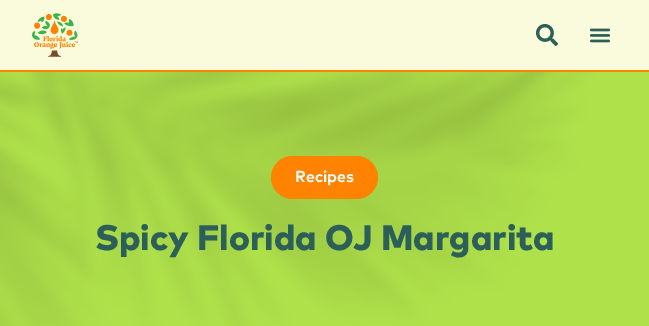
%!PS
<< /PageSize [649 326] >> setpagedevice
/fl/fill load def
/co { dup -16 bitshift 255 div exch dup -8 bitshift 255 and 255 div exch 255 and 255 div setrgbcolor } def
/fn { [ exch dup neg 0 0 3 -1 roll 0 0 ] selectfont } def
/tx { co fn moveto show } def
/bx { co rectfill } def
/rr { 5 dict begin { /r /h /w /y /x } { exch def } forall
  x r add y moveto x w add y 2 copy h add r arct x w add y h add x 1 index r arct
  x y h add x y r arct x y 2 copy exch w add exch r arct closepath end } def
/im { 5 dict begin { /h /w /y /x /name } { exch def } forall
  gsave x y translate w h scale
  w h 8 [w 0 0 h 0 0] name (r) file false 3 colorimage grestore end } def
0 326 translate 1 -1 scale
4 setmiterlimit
0 0 649 326 16#FAFADC bx
0 70 649 2 16#FF8200 bx
(media/1.raw) 32 13 46 44 im
(media/2.raw) 536 24 22 22 im
(media/3.raw) 589 28 22 15 im
(media/4.raw) 0 72 649 254 im
271 156 107 43 21.5 rr fl
(Recipes) 295 182 /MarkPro-Bold 16 16#FAFAF7 tx
(Spicy Florida OJ Margarita) 95 250 /MarkPro-Black 35.5 16#2D5F5A tx
showpage
